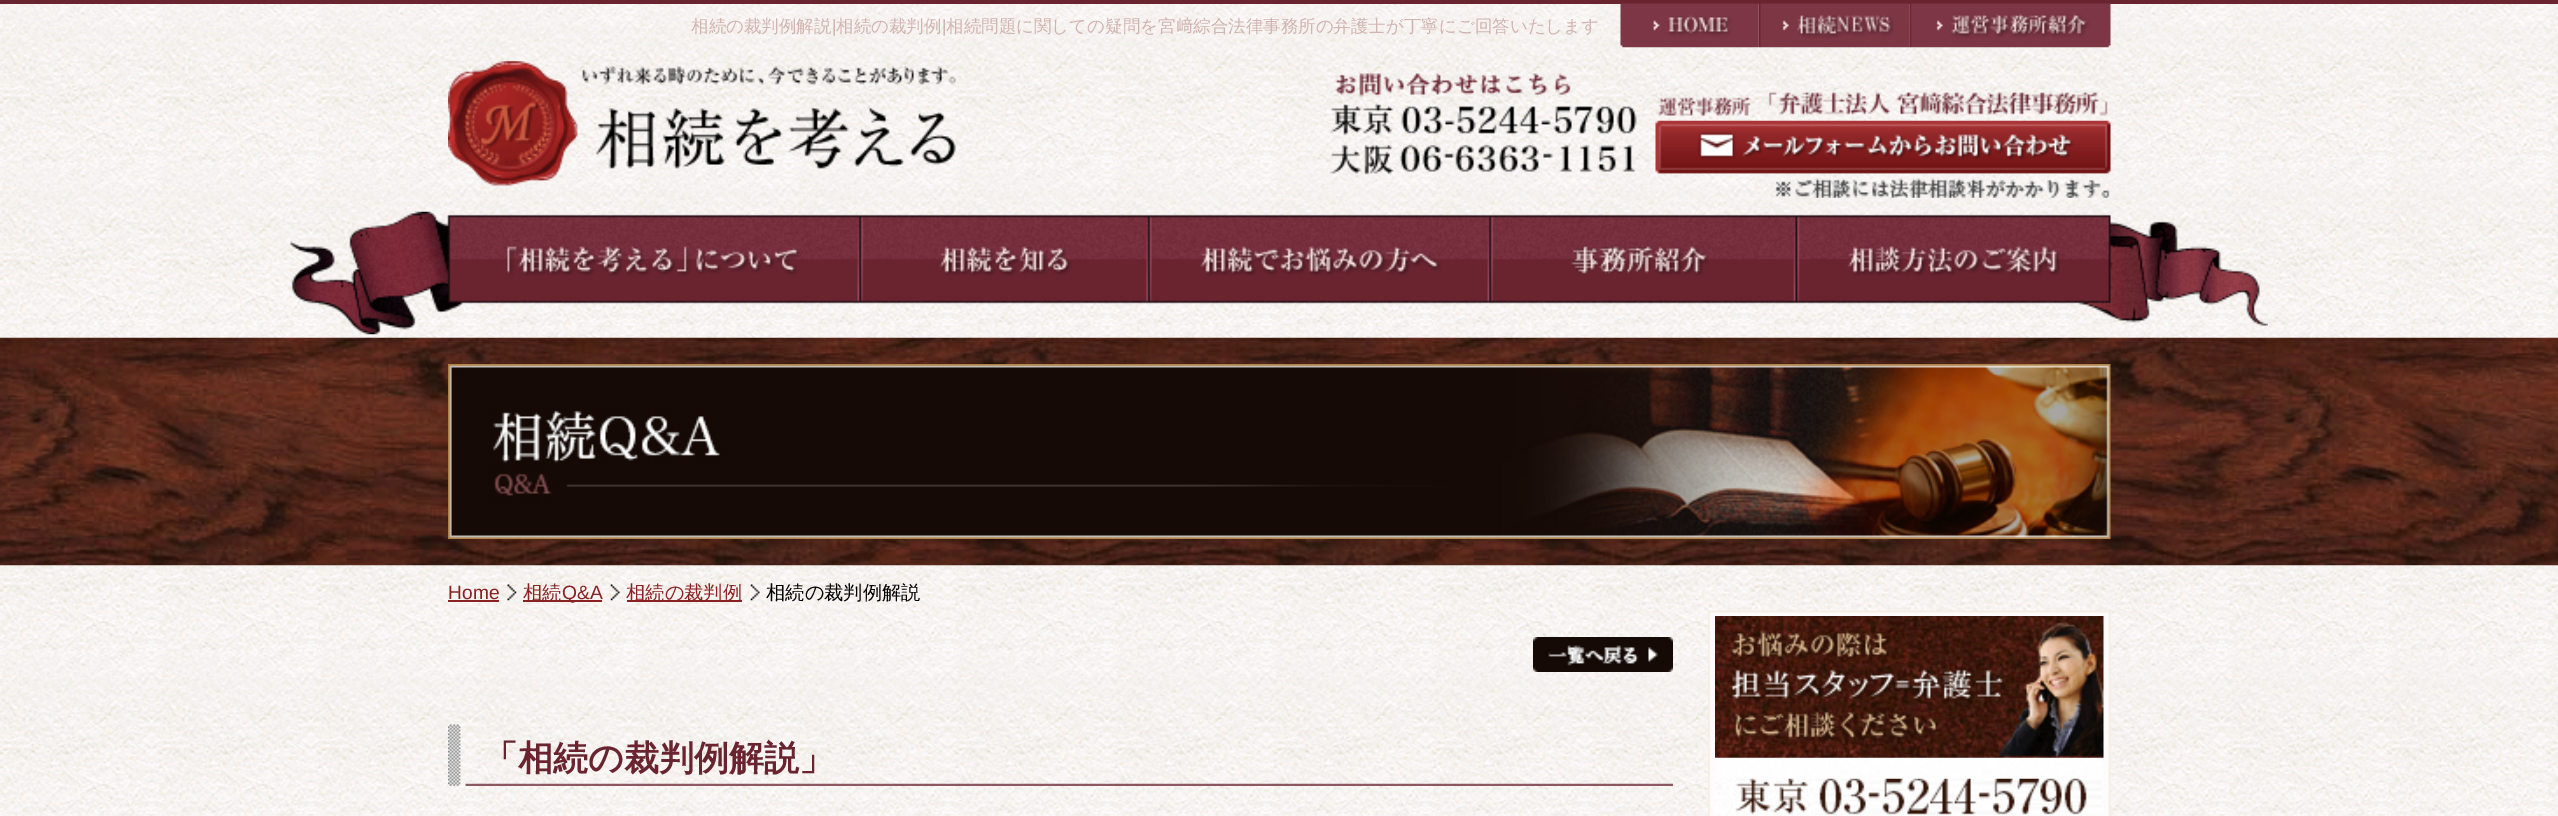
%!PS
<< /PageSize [2558 816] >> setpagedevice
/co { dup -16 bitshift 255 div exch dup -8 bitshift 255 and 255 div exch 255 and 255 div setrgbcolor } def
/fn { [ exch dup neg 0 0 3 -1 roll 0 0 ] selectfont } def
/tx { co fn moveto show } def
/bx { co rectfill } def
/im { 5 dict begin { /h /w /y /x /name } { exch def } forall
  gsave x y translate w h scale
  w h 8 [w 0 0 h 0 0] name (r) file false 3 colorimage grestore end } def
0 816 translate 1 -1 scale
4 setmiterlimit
0 0 2558 816 16#FFFFFF bx
(media/1.raw) 0 4 2558 812 im
0 0 2558 4 16#692430 bx
(media/2.raw) 1620 3 139 45 im
(media/3.raw) 1758 3 152 45 im
(media/4.raw) 1909 3 202 45 im
(media/5.raw) 448 61 508 125 im
(media/6.raw) 1330 73 778 102 im
(media/7.raw) 1655 120 456 78 im
(media/8.raw) 290 211 1978 124 im
(media/9.raw) 506 246 295 30 im
(media/10.raw) 939 246 133 30 im
(media/11.raw) 1200 246 241 30 im
(media/12.raw) 1571 245 138 31 im
(media/13.raw) 1847 246 213 30 im
(media/14.raw) 0 337 2558 229 im
(media/15.raw) 448 364 1663 175 im
448 600 51 2 16#8A2123 bx
(media/16.raw) 507 584 10 17 im
523 600 79 2 16#8A2123 bx
(media/17.raw) 610 584 10 17 im
627 600 115 2 16#8A2123 bx
(media/18.raw) 750 584 10 17 im
(media/19.raw) 1533 637 140 35 im
(media/20.raw) 448 724 1225 62 im
(media/21.raw) 1708 610 403 206 im
(media/22.raw) 1715 616 389 142 im
(media/23.raw) 1715 778 388 38 im
(相続の裁判例解説) 691 32 /WenQuanYiZenHei-Medium 17.5 16#D1B3AF tx
(|) 832 32 /LiberationSans-Regular 17.5 16#D1B3AF tx
(相続の裁判例) 836 32 /WenQuanYiZenHei-Medium 17.5 16#D1B3AF tx
(|) 942 32 /LiberationSans-Regular 17.5 16#D1B3AF tx
(相続問題に関しての疑問を宮) 946 32 /WenQuanYiZenHei-Medium 17.5 16#D1B3AF tx
(﨑) 1176 32 /IPAPGothic-Regular 17.5 16#D1B3AF tx
(綜合法律事務所の弁護士が丁寧にご回答いたします) 1193 32 /WenQuanYiZenHei-Medium 17.5 16#D1B3AF tx
(Home) 448 599 /LiberationSans-Regular 19.25 16#8A2123 tx
(相続) 523 599 /WenQuanYiZenHei-Medium 19.25 16#8A2123 tx
(Q&A) 562 599 /LiberationSans-Regular 19.25 16#8A2123 tx
(相続の裁判例) 626 599 /WenQuanYiZenHei-Medium 19.25 16#8A2123 tx
(相続の裁判例解説) 766 599 /WenQuanYiZenHei-Medium 19.25 16#000000 tx
(「相続の裁判例解説」) 483 770 /WenQuanYiZenHei-Bold 35 16#692430 tx
showpage
